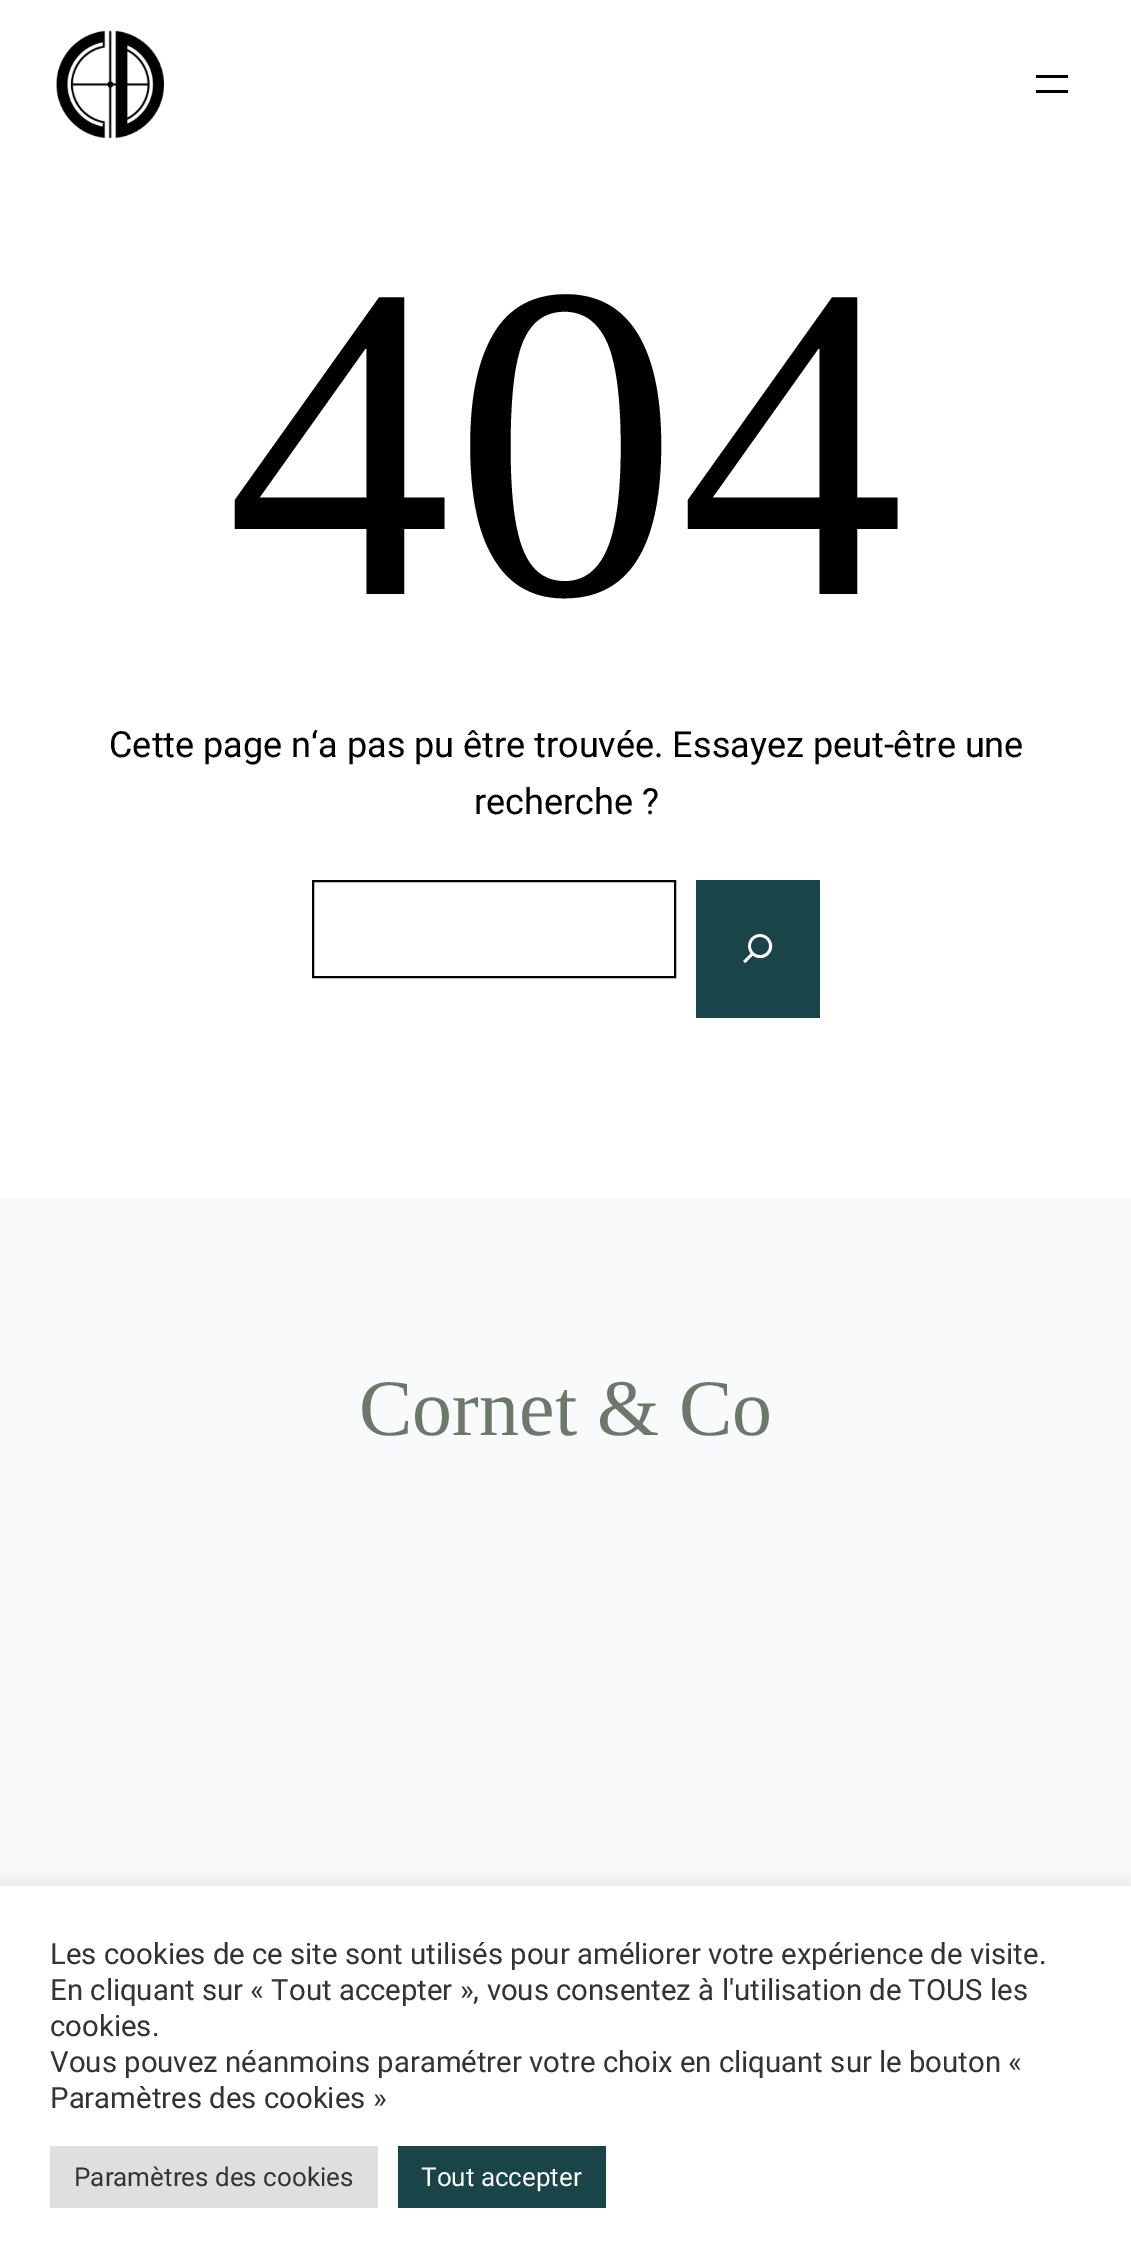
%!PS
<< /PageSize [1131 2267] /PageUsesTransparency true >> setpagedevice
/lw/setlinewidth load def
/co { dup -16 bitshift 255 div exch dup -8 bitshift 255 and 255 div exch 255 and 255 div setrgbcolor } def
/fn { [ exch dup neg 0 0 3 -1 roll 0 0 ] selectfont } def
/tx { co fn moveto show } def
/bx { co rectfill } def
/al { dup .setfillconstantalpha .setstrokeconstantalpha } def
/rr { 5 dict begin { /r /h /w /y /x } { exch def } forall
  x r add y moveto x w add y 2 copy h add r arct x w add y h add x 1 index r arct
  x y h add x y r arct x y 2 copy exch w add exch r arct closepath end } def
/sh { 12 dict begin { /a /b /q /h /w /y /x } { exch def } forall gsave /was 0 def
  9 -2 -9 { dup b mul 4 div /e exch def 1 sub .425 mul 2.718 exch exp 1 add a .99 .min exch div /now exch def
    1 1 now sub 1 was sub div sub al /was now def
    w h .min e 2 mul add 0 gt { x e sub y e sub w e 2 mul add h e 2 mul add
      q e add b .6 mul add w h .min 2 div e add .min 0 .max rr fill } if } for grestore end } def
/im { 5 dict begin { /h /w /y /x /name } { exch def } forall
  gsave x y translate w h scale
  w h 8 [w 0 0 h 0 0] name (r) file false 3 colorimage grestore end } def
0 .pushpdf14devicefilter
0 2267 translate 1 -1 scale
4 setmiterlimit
0 0 1131 2267 16#FFFFFF bx
(media/1.raw) 56 30 108 108 im
1036 75 32 3 16#000000 bx
1036 90 32 3 16#000000 bx
2 lw
313 881 362 96 rectstroke
696 880 124 138 16#1A4548 bx
(media/2.raw) 743 934 30 30 im
0 1198 1131 688 16#F8FAFB bx
16#ACABAB co
0 1884 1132 382 0 10 .3 sh
0 1886 1131 381 16#FFFFFF bx
50 2146 328 62 16#DEDFE0 bx
398 2146 208 62 16#1A4548 bx
(404) 226 594 /LiberationSerif-Regular 453 16#000000 tx
(Cette page n‘a pas pu être trouvée. Essayez peut-être une) 109 757 /Roboto-Regular 36 16#000000 tx
(recherche ?) 474 814 /Roboto-Regular 36 16#000000 tx
(Cornet & Co) 359 1435 /LiberationSerif-Regular 80 16#6C7968 tx
(Les cookies de ce site sont utilisés pour améliorer votre expérience de visite.) 50 1964 /Roboto-Regular 29.35 16#333333 tx
(En cliquant sur « Tout accepter », vous consentez à l'utilisation de TOUS les) 50 2000 /Roboto-Regular 29.35 16#333333 tx
(cookies.) 50 2036 /Roboto-Regular 29.35 16#333333 tx
(Vous pouvez néanmoins paramétrer votre choix en cliquant sur le bouton «) 50 2072 /Roboto-Regular 29.35 16#333333 tx
(Paramètres des cookies ») 50 2108 /Roboto-Regular 29.35 16#333333 tx
(Paramètres des cookies) 74 2186 /Roboto-Regular 26 16#333333 tx
(Tout accepter) 421 2186 /Roboto-Regular 26 16#FFFFFF tx
.poppdf14devicefilter showpage
